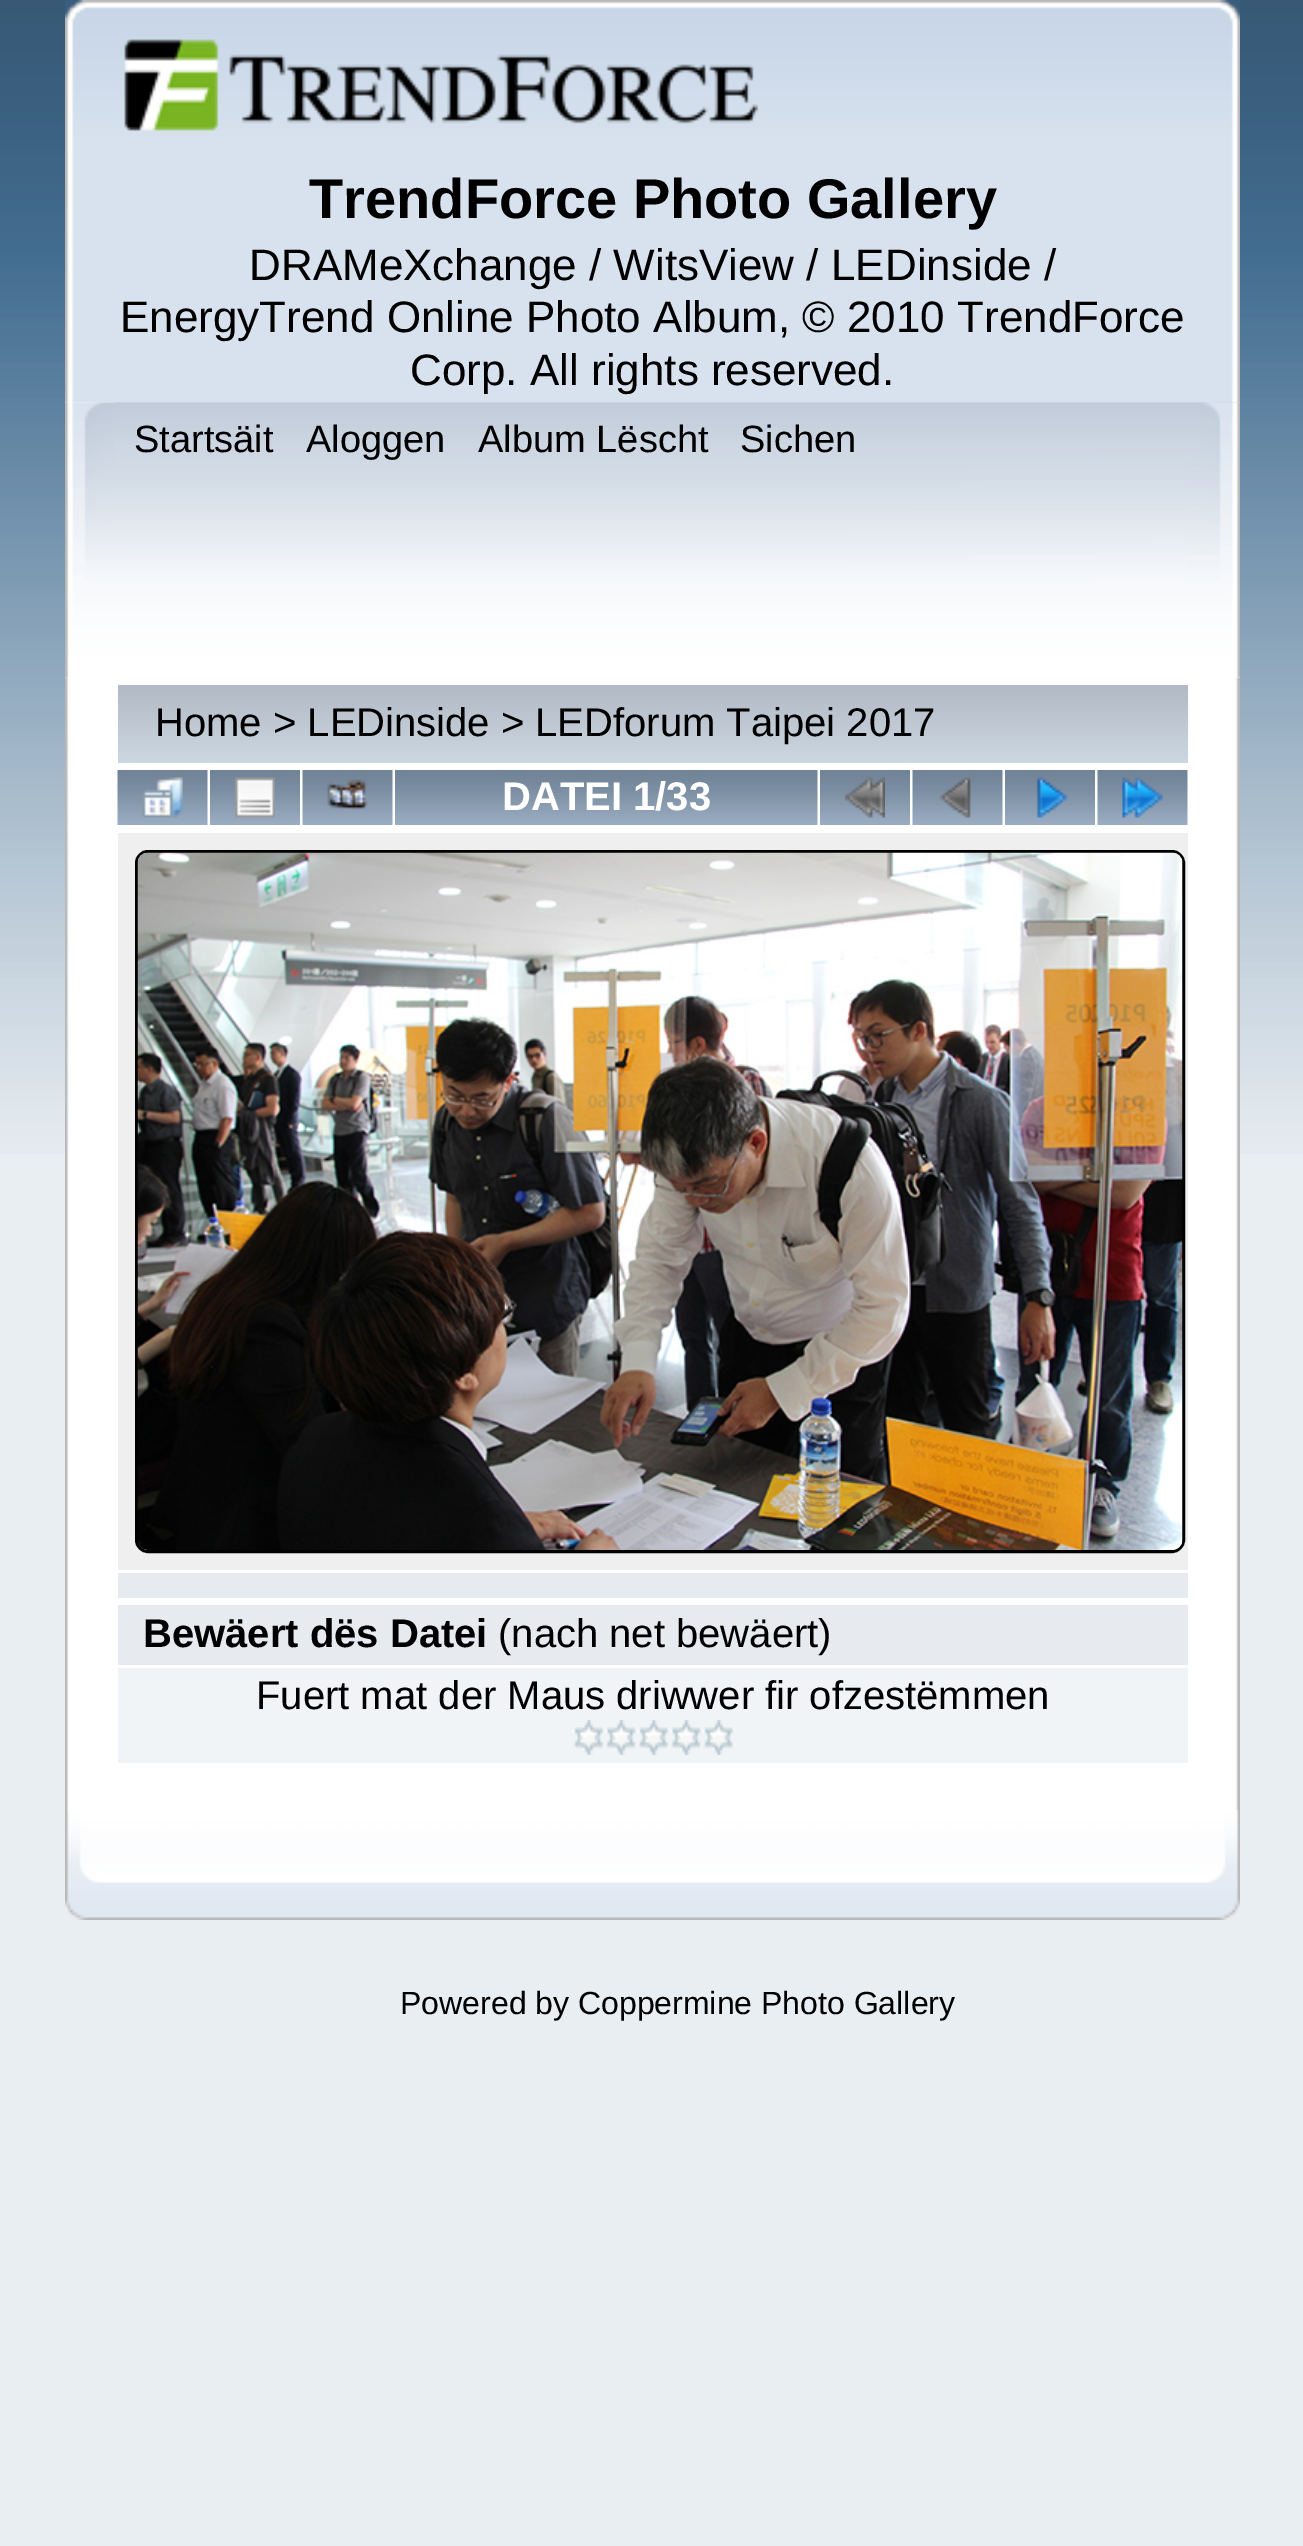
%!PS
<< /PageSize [1303 2546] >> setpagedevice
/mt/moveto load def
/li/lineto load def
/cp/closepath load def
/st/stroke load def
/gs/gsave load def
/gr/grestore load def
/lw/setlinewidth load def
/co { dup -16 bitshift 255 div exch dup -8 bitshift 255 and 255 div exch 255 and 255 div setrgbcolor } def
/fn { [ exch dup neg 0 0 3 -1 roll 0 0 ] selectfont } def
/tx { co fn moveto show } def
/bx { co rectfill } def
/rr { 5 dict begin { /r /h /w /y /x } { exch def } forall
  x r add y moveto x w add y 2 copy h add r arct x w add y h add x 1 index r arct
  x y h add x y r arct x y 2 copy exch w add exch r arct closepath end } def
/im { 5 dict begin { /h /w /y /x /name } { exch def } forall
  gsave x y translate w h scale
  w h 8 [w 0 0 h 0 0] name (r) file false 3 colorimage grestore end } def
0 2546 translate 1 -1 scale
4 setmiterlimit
0 0 1303 2546 16#E9EEF2 bx
(media/1.raw) 0 0 1303 1154 im
(media/2.raw) 65 0 1175 403 im
(media/3.raw) 115 0 1125 403 im
(media/4.raw) 124 39 635 92 im
(media/5.raw) 65 402 1175 276 im
(media/6.raw) 115 402 1125 276 im
(media/7.raw) 65 677 1175 1133 im
(media/8.raw) 1236 677 4 1133 im
gs 118 685 mt 1188 685 li 1188 763 li 118 763 li cp clip newpath
<< /ShadingType 2 /ColorSpace /DeviceRGB /Coords [653 685 653 763] /Extend [true true] /Function << /FunctionType 2 /Domain [0 1] /C0 [.694 .729 .769] /C1 [.804 .843 .882] /N 1 >> >> shfill gr
(media/9.raw) 117 770 91 55 im
(media/10.raw) 142 777 41 41 im
(media/11.raw) 210 770 90 55 im
(media/12.raw) 235 777 40 41 im
(media/9.raw) 302 770 91 55 im
(media/13.raw) 327 779 41 31 im
(media/14.raw) 395 770 423 55 im
(media/11.raw) 820 770 90 55 im
(media/15.raw) 845 777 40 41 im
(media/9.raw) 912 770 91 55 im
(media/16.raw) 939 777 32 41 im
(media/11.raw) 1005 770 90 55 im
(media/17.raw) 1036 777 33 41 im
(media/9.raw) 1097 770 91 55 im
(media/18.raw) 1122 777 41 41 im
118 833 1070 737 16#EFEFEF bx
16#000000 co
3 lw
136.5 851.5 1047 700 11.5 rr st
(media/19.raw) 137 852 1046 698 im
118 1573 1070 25 16#E7EAEF bx
118 1605 1070 60 16#E7EAEF bx
118 1668 1070 95 16#F0F4F7 bx
(media/20.raw) 572 1720 33 35 im
(media/21.raw) 605 1720 32 35 im
(media/22.raw) 637 1720 33 35 im
(media/23.raw) 670 1720 32 35 im
(media/22.raw) 702 1720 33 35 im
(media/24.raw) 65 1810 1144 110 im
(media/25.raw) 1209 1810 31 110 im
(TrendForce Photo Gallery) 309 218 /LiberationSans-Bold 56 16#000000 tx
(DRAMeXchange / WitsView / LEDinside /) 249 280 /LiberationSans-Regular 44 16#000000 tx
(EnergyTrend Online Photo Album, © 2010 TrendForce) 120 332 /LiberationSans-Regular 44 16#000000 tx
(Corp. All rights reserved.) 410 385 /LiberationSans-Regular 44 16#000000 tx
(Startsäit) 134 452 /LiberationSans-Regular 38 16#000000 tx
(Aloggen) 306 452 /LiberationSans-Regular 38 16#000000 tx
(Album Lëscht) 478 452 /LiberationSans-Regular 38 16#000000 tx
(Sichen) 740 452 /LiberationSans-Regular 38 16#000000 tx
(Home > LEDinside > LEDforum Taipei 2017) 155 736 /LiberationSans-Regular 40 16#000000 tx
(DATEI 1/33) 502 810 /LiberationSans-Bold 40 16#FFFFFF tx
(Bewäert dës Datei) 143 1647 /LiberationSans-Bold 40 16#000000 tx
(\(nach net bewäert\)) 498 1647 /LiberationSans-Regular 40 16#000000 tx
(Fuert mat der Maus driwwer fir ofzestëmmen) 256 1709 /LiberationSans-Regular 40 16#000000 tx
(Powered by Coppermine Photo Gallery) 400 2014 /LiberationSans-Regular 32 16#000000 tx
showpage
